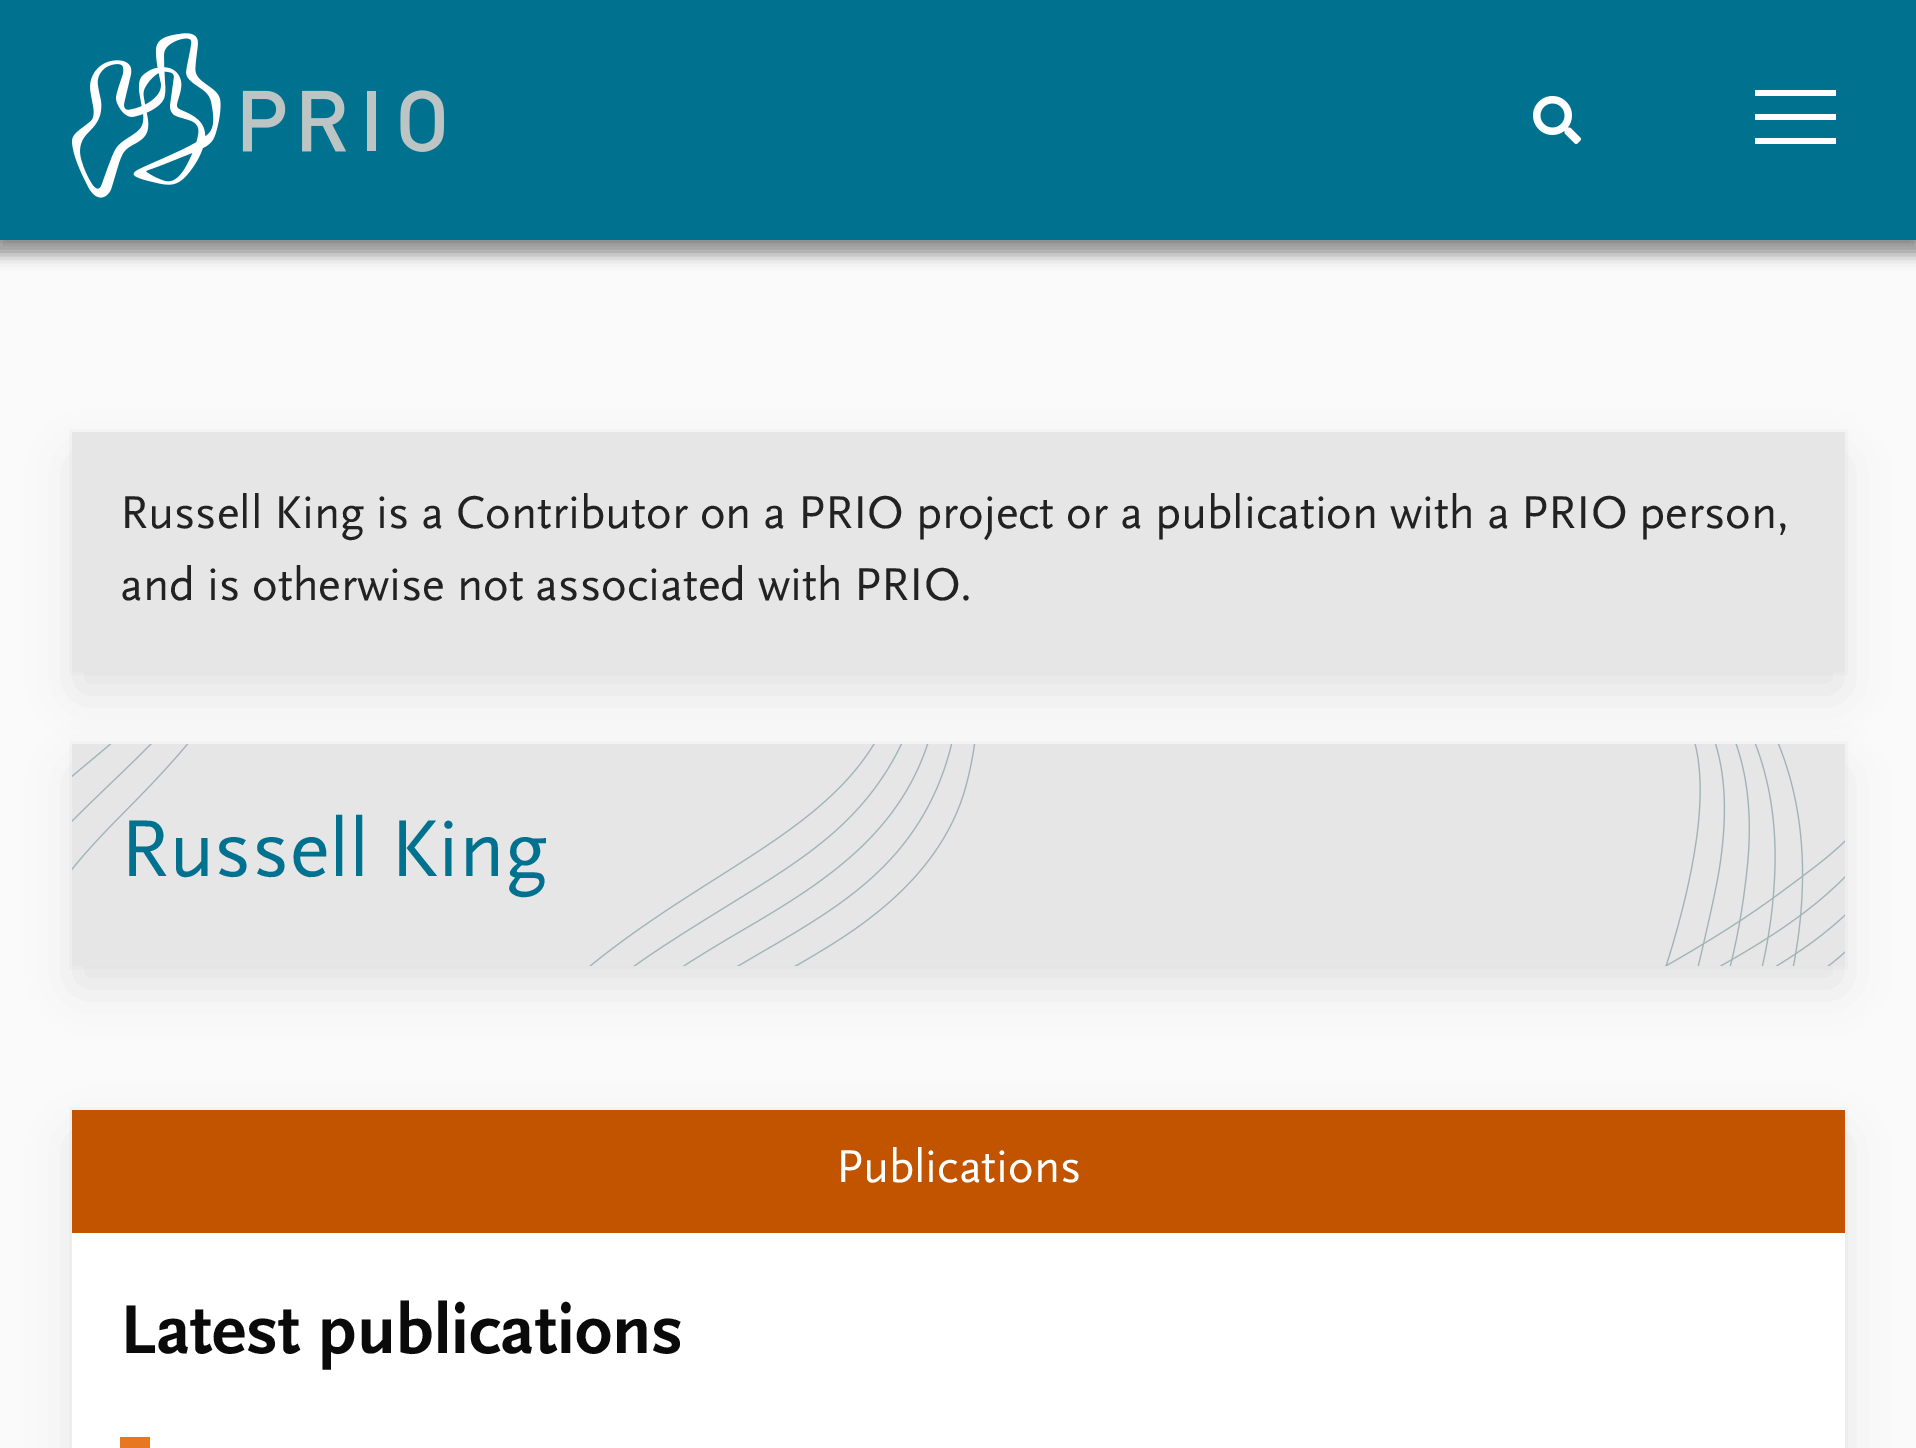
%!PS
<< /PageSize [1916 1448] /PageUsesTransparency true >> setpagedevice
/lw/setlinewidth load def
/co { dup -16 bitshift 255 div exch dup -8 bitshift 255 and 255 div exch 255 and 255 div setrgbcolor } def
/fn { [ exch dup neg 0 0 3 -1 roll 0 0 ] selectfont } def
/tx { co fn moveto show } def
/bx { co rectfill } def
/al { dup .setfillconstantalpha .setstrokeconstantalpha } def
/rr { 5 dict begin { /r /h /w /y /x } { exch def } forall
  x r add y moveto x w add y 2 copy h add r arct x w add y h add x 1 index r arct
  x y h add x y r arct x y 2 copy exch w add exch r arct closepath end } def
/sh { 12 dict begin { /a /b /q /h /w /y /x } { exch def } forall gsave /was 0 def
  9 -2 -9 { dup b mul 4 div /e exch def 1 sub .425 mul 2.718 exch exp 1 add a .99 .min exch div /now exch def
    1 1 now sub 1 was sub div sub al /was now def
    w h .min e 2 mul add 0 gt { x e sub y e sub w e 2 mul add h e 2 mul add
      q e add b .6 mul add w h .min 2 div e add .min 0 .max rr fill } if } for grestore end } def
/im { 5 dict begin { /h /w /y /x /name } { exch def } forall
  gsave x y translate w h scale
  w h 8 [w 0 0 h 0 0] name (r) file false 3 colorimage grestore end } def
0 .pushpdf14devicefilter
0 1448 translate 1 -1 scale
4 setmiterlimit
0 0 1916 1448 16#FAFAFA bx
16#E7E7E7 co
3 lw
-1.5 -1.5 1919 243 rectstroke
16#323232 co
-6 6 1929 249 0 7 .5 sh
0 0 1916 240 16#00718F bx
(media/1.raw) 72 33 372 165 im
(media/2.raw) 1533 96 48 48 im
1755 90 81 6 16#FFFFFF bx
1755 114 81 6 16#FFFFFF bx
1755 138 81 6 16#FFFFFF bx
16#F5F5F5 co
70.5 430.5 1776 243 rectstroke
16#0A0A0A co
78 462 1761 228 0 24 .1 sh
72 432 1773 240 16#E6E6E6 bx
16#F5F5F5 co
70.5 742.5 1776 225 rectstroke
16#0A0A0A co
78 774 1761 210 0 24 .1 sh
72 744 1773 222 16#E6E6E6 bx
(media/3.raw) 72 744 1773 222 im
16#F5F5F5 co
70.5 1108.5 1776 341 rectstroke
16#0A0A0A co
78 1140 1761 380 0 24 .1 sh
72 1233 1773 215 16#FFFFFF bx
72 1110 1773 123 16#C25400 bx
120 1437 30 11 16#E87722 bx
(Russell King is a Contributor on a PRIO project or a publication with a PRIO person,) 120 528 /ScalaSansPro-Regular 48 16#222222 tx
(and is otherwise not associated with PRIO.) 120 600 /ScalaSansPro-Regular 48 16#222222 tx
(Russell King) 120 876 /ScalaSansPro-Regular 84 16#00718F tx
(Publications) 836 1182 /ScalaSansPro-Regular 48 16#FFFFFF tx
(Latest publications) 120 1353 /ScalaSansPro-Bold 72 16#0A0A0A tx
.poppdf14devicefilter showpage
